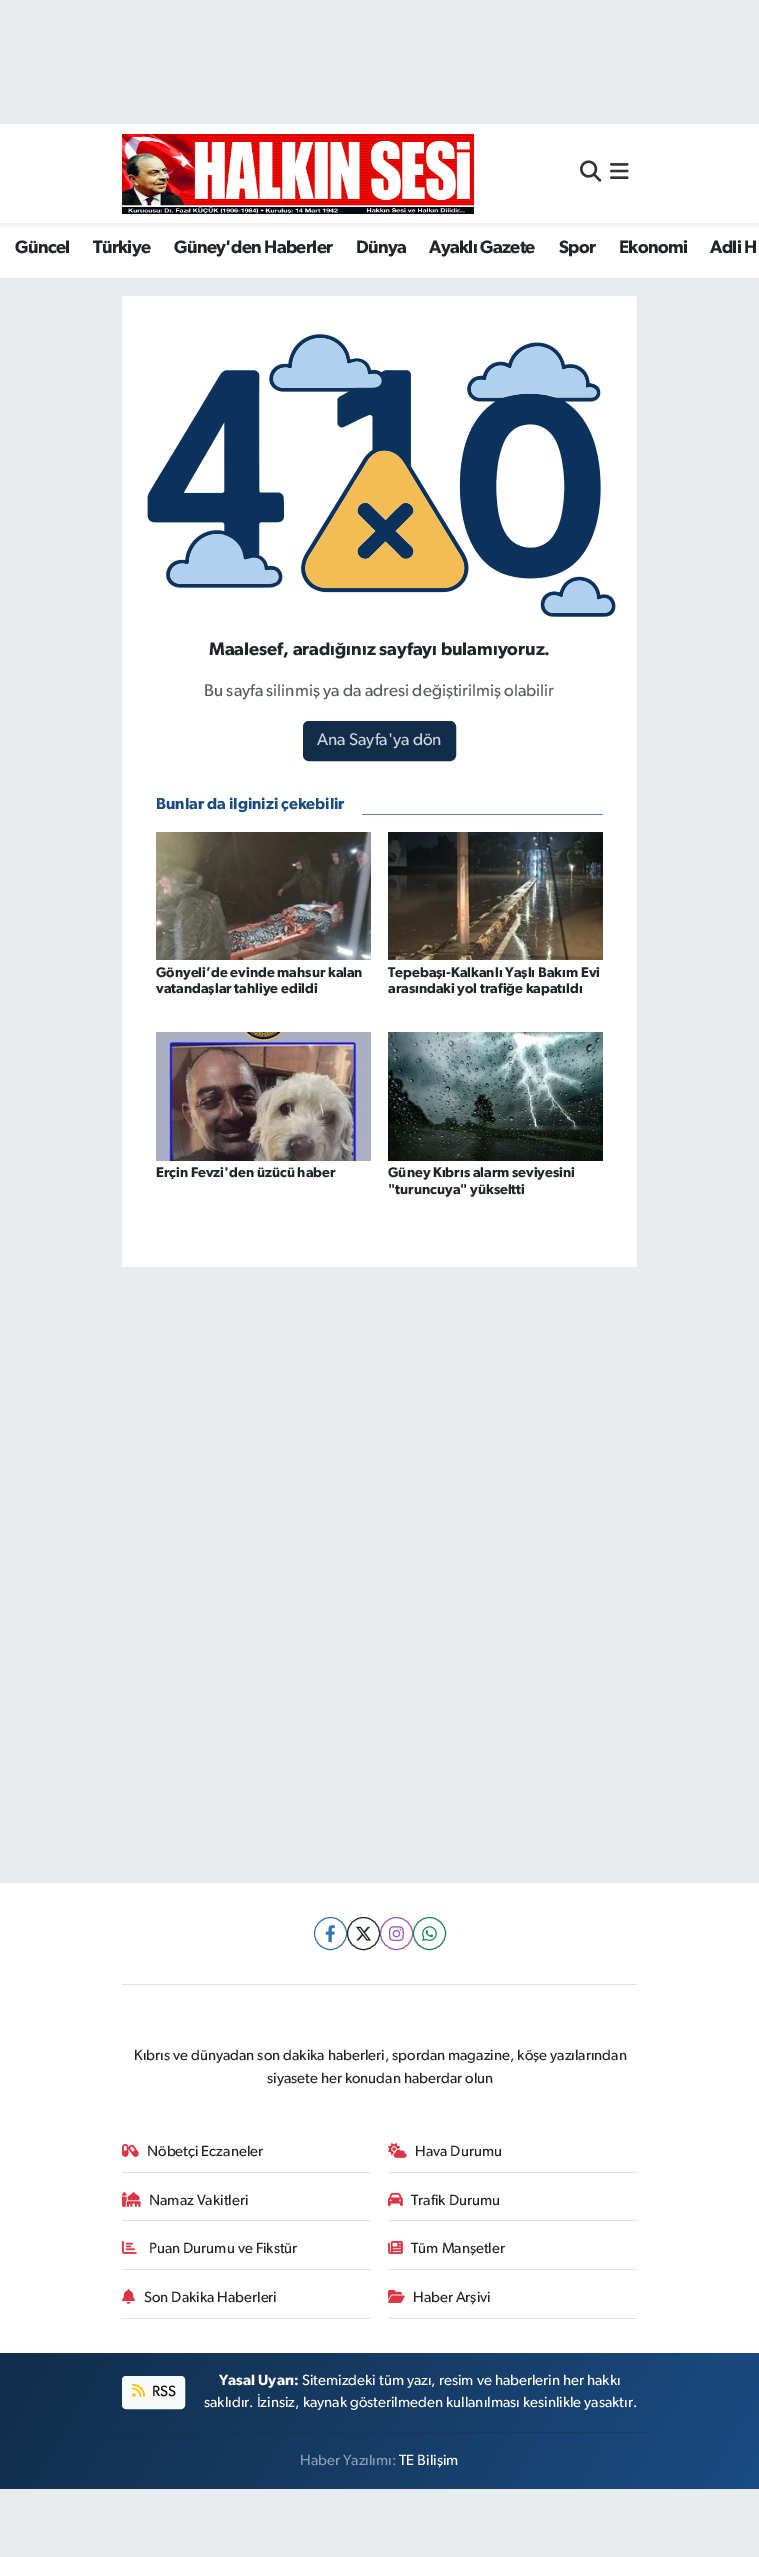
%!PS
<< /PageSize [759 2557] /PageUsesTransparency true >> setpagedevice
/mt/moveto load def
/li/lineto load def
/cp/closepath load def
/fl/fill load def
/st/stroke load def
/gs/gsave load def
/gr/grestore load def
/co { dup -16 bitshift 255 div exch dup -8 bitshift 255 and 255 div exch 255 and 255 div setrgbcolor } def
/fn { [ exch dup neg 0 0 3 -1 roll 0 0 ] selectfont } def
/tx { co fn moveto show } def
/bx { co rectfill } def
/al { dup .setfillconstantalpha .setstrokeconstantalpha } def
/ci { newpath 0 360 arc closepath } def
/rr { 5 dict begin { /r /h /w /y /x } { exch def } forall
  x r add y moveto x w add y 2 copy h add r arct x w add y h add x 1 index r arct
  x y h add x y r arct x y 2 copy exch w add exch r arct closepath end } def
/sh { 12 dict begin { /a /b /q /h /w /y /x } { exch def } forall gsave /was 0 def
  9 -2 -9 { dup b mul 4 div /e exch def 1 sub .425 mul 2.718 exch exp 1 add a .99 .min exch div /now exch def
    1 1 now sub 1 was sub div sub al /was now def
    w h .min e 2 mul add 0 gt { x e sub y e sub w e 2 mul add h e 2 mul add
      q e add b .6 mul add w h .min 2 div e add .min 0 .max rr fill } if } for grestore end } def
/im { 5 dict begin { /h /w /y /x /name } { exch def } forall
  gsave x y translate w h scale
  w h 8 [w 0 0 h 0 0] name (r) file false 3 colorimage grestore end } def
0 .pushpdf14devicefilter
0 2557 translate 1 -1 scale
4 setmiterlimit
0 0 759 2557 16#E9ECEF bx
0 223 759 55 16#FFFFFF bx
16#000000 co
0 126 759 99 0 2 .07 sh
0 124 759 99 16#FFFFFF bx
(media/1.raw) 122 134 352 80 im
(media/2.raw) 580 160 22 22 im
(media/3.raw) 610 163 19 16 im
0 278 759 1 16#E6E6E6 bx
122 296 515 971 16#FFFFFF bx
(media/4.raw) 147 334 469 283 im
16#122D4A co
303.5 721.5 152 39 5.5 rr gs fl gr
st
362 814 241 1 16#5E82A8 bx
(media/5.raw) 156 832 215 128 im
(media/6.raw) 388 832 215 128 im
(media/7.raw) 156 1032 215 129 im
(media/8.raw) 388 1032 215 129 im
0 1883 759 470 16#FFFFFF bx
16#3276B3 co
330.5 1933.5 16 ci st
(media/9.raw) 325 1925 10 18 im
16#212529 co
363.5 1933.5 16 ci st
(media/10.raw) 356 1926 15 15 im
16#9B59B6 co
396.5 1933.5 16 ci st
(media/11.raw) 389 1926 15 16 im
16#198754 co
429.5 1933.5 16 ci st
(media/12.raw) 422 1926 15 15 im
122 1984 515 1 16#DEE2E6 bx
122 2172 249 1 16#DEE2E6 bx
(media/13.raw) 122 2143 17 14 im
388 2172 249 1 16#DEE2E6 bx
(media/14.raw) 388 2143 19 15 im
122 2220 249 1 16#DEE2E6 bx
(media/15.raw) 122 2192 19 15 im
388 2220 249 1 16#DEE2E6 bx
(media/16.raw) 388 2192 15 14 im
122 2269 249 1 16#DEE2E6 bx
(media/17.raw) 122 2241 15 13 im
388 2269 249 1 16#DEE2E6 bx
(media/18.raw) 388 2240 15 14 im
122 2318 249 1 16#DEE2E6 bx
(media/19.raw) 122 2289 13 15 im
388 2318 249 1 16#DEE2E6 bx
(media/20.raw) 388 2289 17 14 im
gs 0 2353 mt 759 2353 li 759 2489 li 0 2489 li cp clip newpath
<< /ShadingType 2 /ColorSpace /DeviceRGB /Coords [65 2240 694 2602] /Extend [true true] /Function << /FunctionType 2 /Domain [0 1] /C0 [.071 .176 .29] /C1 [.098 .298 .51] /N 1 >> >> shfill gr
gs 110 2432 mt 650 2432 li 650 2433 li 110 2433 li cp clip newpath
<< /ShadingType 2 /ColorSpace /DeviceRGB /Coords [65 2240 694 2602] /Extend [true true] /Function << /FunctionType 2 /Domain [0 1] /C0 [.086 .169 .259] /C1 [.106 .259 .424] /N 1 >> >> shfill gr
16#F8F9FA co
122.5 2376.5 62 32 3.5 rr gs fl gr
st
(media/21.raw) 132 2383 13 14 im
/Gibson-SemiBold 18 fn
16#212529 co
15 253 mt -.6 0 (Güncel) ashow
93 253 mt -.6 0 (Türkiye) ashow
174 253 mt -.6 0 (Güney'den Haberler) ashow
356 253 mt -.6 0 (Dünya) ashow
429 253 mt -.6 0 (Ayaklı Gazete) ashow
559 253 mt -.6 0 (Spor) ashow
619 253 mt -.6 0 (Ekonomi) ashow
710 253 mt -.6 0 (Adli H) ashow
(Maalesef, aradığınız sayfayı bulamıyoruz.) 209 655 /Gibson-SemiBold 18 16#212529 tx
(Bu sayfa silinmiş ya da adresi değiştirilmiş olabilir) 204 696 /Gibson-Regular 17 16#595C5F tx
(Ana Sayfa'ya dön) 317 745 /Gibson-Regular 17 16#D0D5DB tx
(Bunlar da ilginizi çekebilir) 156 809 /Gibson-SemiBold 16 16#194C82 tx
(Gönyeli’de evinde mahsur kalan) 156 977 /Gibson-SemiBold 14 16#212529 tx
(vatandaşlar tahliye edildi) 156 993 /Gibson-SemiBold 14 16#212529 tx
(Tepebaşı-Kalkanlı Yaşlı Bakım Evi) 388 977 /Gibson-SemiBold 14 16#212529 tx
(arasındaki yol trafiğe kapatıldı) 388 993 /Gibson-SemiBold 14 16#212529 tx
(Erçin Fevzi'den üzücü haber) 156 1177 /Gibson-SemiBold 14 16#212529 tx
(Güney Kıbrıs alarm seviyesini) 388 1177 /Gibson-SemiBold 14 16#212529 tx
("turuncuya" yükseltti) 388 1194 /Gibson-SemiBold 14 16#212529 tx
(Kıbrıs ve dünyadan son dakika haberleri, spordan magazine, köşe yazılarından) 134 2060 /Gibson-Regular 14.9 16#212529 tx
(siyasete her konudan haberdar olun) 267 2083 /Gibson-Regular 14.9 16#212529 tx
(Nöbetçi Eczaneler) 147 2156 /Gibson-Regular 14.9 16#212529 tx
(Hava Durumu) 415 2156 /Gibson-Regular 14.9 16#212529 tx
(Namaz Vakitleri) 149 2205 /Gibson-Regular 14.9 16#212529 tx
(Trafik Durumu) 411 2205 /Gibson-Regular 14.9 16#212529 tx
(Puan Durumu ve Fikstür) 149 2253 /Gibson-Regular 14.9 16#212529 tx
(Tüm Manşetler) 411 2253 /Gibson-Regular 14.9 16#212529 tx
(Son Dakika Haberleri) 144 2302 /Gibson-Regular 14.9 16#212529 tx
(Haber Arşivi) 413 2302 /Gibson-Regular 14.9 16#212529 tx
(RSS) 152 2396 /Gibson-Regular 14.9 16#000000 tx
(Yasal Uyarı:) 219 2385 /Gibson-SemiBold 14.9 16#FFFFFF tx
(Sitemizdeki tüm yazı, resim ve haberlerin her hakkı) 302 2385 /Gibson-Regular 14.9 16#FFFFFF tx
(saklıdır. İzinsiz, kaynak gösterilmeden kullanılması kesinlikle yasaktır.) 204 2407 /Gibson-Regular 14.9 16#FFFFFF tx
(Haber Yazılımı:) 300 2465 /Gibson-Regular 14.9 16#8A9EB2 tx
(TE Bilişim) 399 2465 /Gibson-Regular 14.9 16#FFFFFF tx
.poppdf14devicefilter showpage
